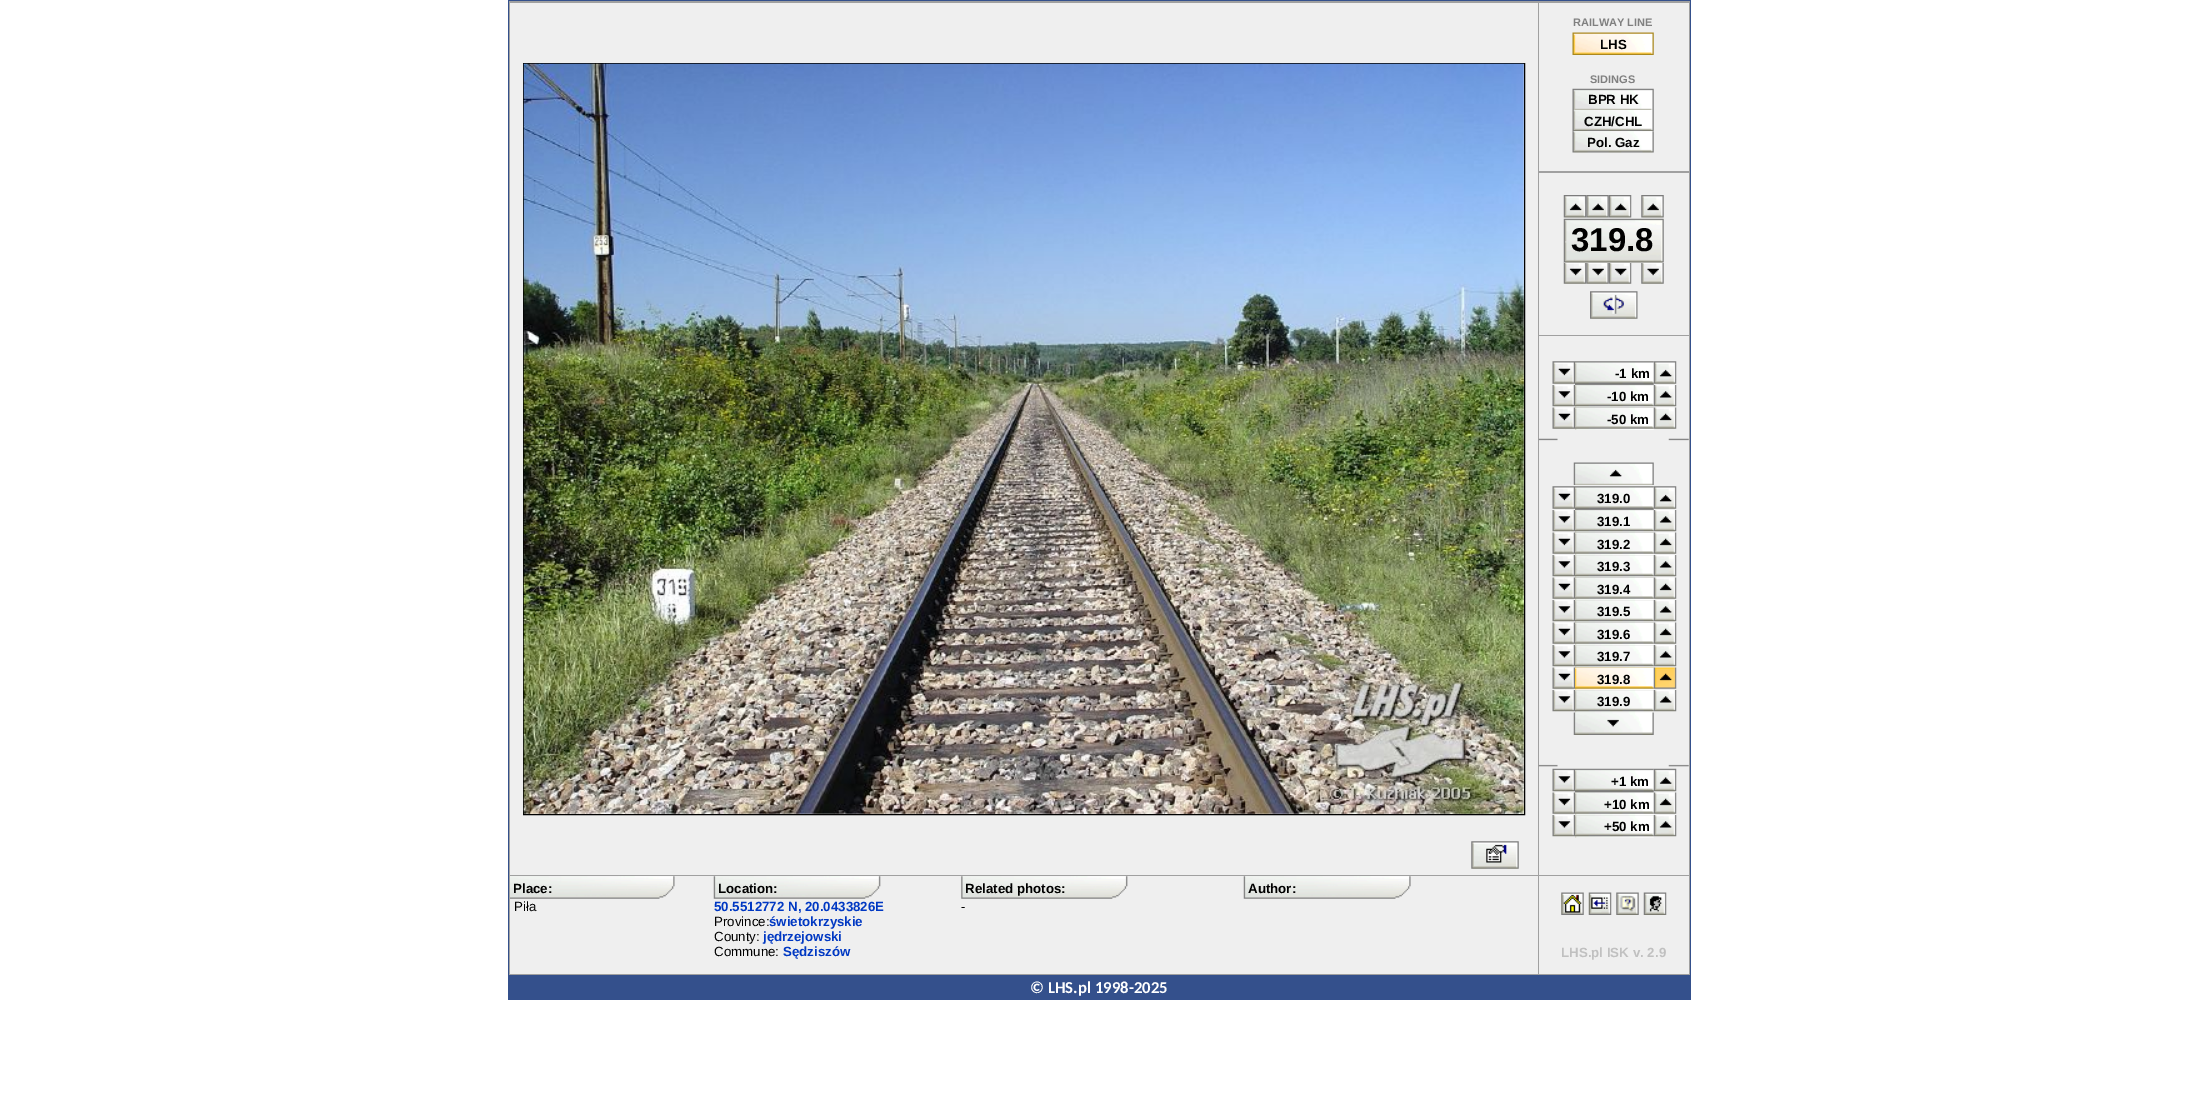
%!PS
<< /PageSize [2197 1111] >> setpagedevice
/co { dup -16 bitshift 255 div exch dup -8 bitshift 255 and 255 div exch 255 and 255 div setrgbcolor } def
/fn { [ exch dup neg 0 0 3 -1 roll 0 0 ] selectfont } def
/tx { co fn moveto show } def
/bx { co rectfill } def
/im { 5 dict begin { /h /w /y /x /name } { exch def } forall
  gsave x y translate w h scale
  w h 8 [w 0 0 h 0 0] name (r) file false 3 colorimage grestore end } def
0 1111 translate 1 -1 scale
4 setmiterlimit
0 0 2197 1111 16#FFFFFF bx
508 0 1183 1000 16#34508C bx
509 1 1181 974 16#A0A0A0 bx
510 3 1028 872 16#EFEFEF bx
16#000000 co
523.5 63.5 1001 751 rectstroke
(media/1.raw) 523 63 1001 751 im
1539 3 150 168 16#EFEFEF bx
(media/2.raw) 1572 32 82 23 im
(media/3.raw) 1572 88 82 22 im
(media/4.raw) 1572 110 82 22 im
1573 131 81 1 16#EFEFEF bx
(media/5.raw) 1572 131 82 22 im
1539 173 150 162 16#EFEFEF bx
(media/6.raw) 1563 195 24 23 im
(media/7.raw) 1586 195 23 23 im
(media/8.raw) 1608 195 24 23 im
(media/9.raw) 1641 195 23 23 im
(media/11.raw) 1563 262 24 22 im
1564 262 23 1 16#EFEFEF bx
(media/10.raw) 1563 218 101 45 im
(media/12.raw) 1586 263 23 21 im
(media/13.raw) 1608 263 24 21 im
(media/14.raw) 1641 263 23 21 im
(media/15.raw) 1590 291 48 28 im
1539 336 150 539 16#EFEFEF bx
(media/16.raw) 1552 361 23 23 im
(media/17.raw) 1575 361 79 24 im
(media/18.raw) 1653 361 24 23 im
(media/19.raw) 1552 385 23 22 im
(media/20.raw) 1575 385 79 23 im
(media/21.raw) 1653 385 24 22 im
(media/22.raw) 1552 407 23 22 im
(media/23.raw) 1575 407 79 23 im
(media/24.raw) 1653 407 24 22 im
(media/25.raw) 1538 438 151 3 im
(media/26.raw) 1573 462 81 23 im
(media/16.raw) 1552 486 23 23 im
(media/17.raw) 1575 486 79 24 im
(media/18.raw) 1653 486 24 23 im
(media/19.raw) 1552 510 23 22 im
(media/20.raw) 1575 510 79 23 im
(media/21.raw) 1653 510 24 22 im
(media/22.raw) 1552 532 23 22 im
(media/23.raw) 1575 532 79 23 im
(media/24.raw) 1653 532 24 22 im
(media/19.raw) 1552 555 23 22 im
(media/20.raw) 1575 555 79 23 im
(media/21.raw) 1653 555 24 22 im
(media/27.raw) 1552 577 23 22 im
(media/23.raw) 1575 577 79 23 im
(media/28.raw) 1653 577 24 22 im
(media/19.raw) 1552 600 23 22 im
(media/20.raw) 1575 600 79 23 im
(media/21.raw) 1653 600 24 22 im
(media/22.raw) 1552 622 23 22 im
(media/23.raw) 1575 622 79 23 im
(media/24.raw) 1653 622 24 22 im
(media/19.raw) 1552 645 23 22 im
(media/20.raw) 1575 645 79 23 im
(media/21.raw) 1653 645 24 22 im
(media/22.raw) 1552 667 23 22 im
(media/29.raw) 1575 667 79 23 im
(media/30.raw) 1653 667 24 22 im
(media/19.raw) 1552 690 23 22 im
(media/20.raw) 1575 690 79 23 im
(media/21.raw) 1653 690 24 22 im
(media/31.raw) 1573 712 81 23 im
(media/32.raw) 1538 764 151 3 im
(media/33.raw) 1552 768 23 24 im
(media/34.raw) 1575 768 79 25 im
(media/35.raw) 1653 768 24 24 im
(media/22.raw) 1552 792 23 22 im
(media/36.raw) 1575 792 79 23 im
(media/37.raw) 1653 792 24 22 im
(media/19.raw) 1552 815 23 22 im
(media/20.raw) 1575 815 79 23 im
(media/21.raw) 1653 815 24 22 im
510 876 1028 98 16#EFEFEF bx
(media/38.raw) 510 876 165 23 im
(media/39.raw) 713 876 168 23 im
(media/40.raw) 961 876 167 23 im
(media/41.raw) 1243 876 168 23 im
(media/42.raw) 1471 841 48 28 im
1539 876 150 98 16#EFEFEF bx
(media/43.raw) 1561 892 23 23 im
(media/44.raw) 1588 892 24 23 im
(media/45.raw) 1616 892 23 23 im
(media/46.raw) 1643 892 24 23 im
(RAILWAY LINE) 1573 26 /LiberationSans-Bold 11 16#808080 tx
(LHS) 1600 49 /LiberationSans-Bold 13.3 16#000000 tx
(SIDINGS) 1590 83 /LiberationSans-Bold 11 16#808080 tx
(BPR HK) 1588 104 /LiberationSans-Bold 13.3 16#000000 tx
(CZH/CHL) 1584 126 /LiberationSans-Bold 13.3 16#000000 tx
(Pol. Gaz) 1587 147 /LiberationSans-Bold 13.3 16#000000 tx
(319.8) 1571 251 /LiberationSans-Bold 33 16#000000 tx
(-1 km) 1615 378 /LiberationSans-Bold 13.3 16#000000 tx
(-10 km) 1607 401 /LiberationSans-Bold 13.3 16#000000 tx
(-50 km) 1607 424 /LiberationSans-Bold 13.3 16#000000 tx
(319.0) 1597 503 /LiberationSans-Bold 13.3 16#000000 tx
(319.1) 1597 526 /LiberationSans-Bold 13.3 16#000000 tx
(319.2) 1597 549 /LiberationSans-Bold 13.3 16#000000 tx
(319.3) 1597 571 /LiberationSans-Bold 13.3 16#000000 tx
(319.4) 1597 594 /LiberationSans-Bold 13.3 16#000000 tx
(319.5) 1597 616 /LiberationSans-Bold 13.3 16#000000 tx
(319.6) 1597 639 /LiberationSans-Bold 13.3 16#000000 tx
(319.7) 1597 661 /LiberationSans-Bold 13.3 16#000000 tx
(319.8) 1597 684 /LiberationSans-Bold 13.3 16#000000 tx
(319.9) 1597 706 /LiberationSans-Bold 13.3 16#000000 tx
(+1 km) 1611 786 /LiberationSans-Bold 13.3 16#000000 tx
(+10 km) 1604 809 /LiberationSans-Bold 13.3 16#000000 tx
(+50 km) 1604 831 /LiberationSans-Bold 13.3 16#000000 tx
(Place:) 513 893 /LiberationSans-Bold 13.3 16#000000 tx
(Location:) 718 893 /LiberationSans-Bold 13.3 16#000000 tx
(Related photos:) 965 893 /LiberationSans-Bold 13.3 16#000000 tx
(Author:) 1248 893 /LiberationSans-Bold 13.3 16#000000 tx
(Piła) 514 911 /LiberationSans-Regular 13.3 16#000000 tx
(50.5512772 N, 20.0433826E) 714 911 /LiberationSans-Bold 13.3 16#0038C3 tx
(Province:) 714 926 /LiberationSans-Regular 13.3 16#000000 tx
(świetokrzyskie) 769 926 /LiberationSans-Bold 13.3 16#0038C3 tx
(County:) 714 941 /LiberationSans-Regular 13.3 16#000000 tx
(jędrzejowski) 763 941 /LiberationSans-Bold 13.3 16#0038C3 tx
(Commune:) 714 956 /LiberationSans-Regular 13.3 16#000000 tx
(Sędziszów) 783 956 /LiberationSans-Bold 13.3 16#0038C3 tx
(-) 961 911 /LiberationSans-Regular 13.3 16#000000 tx
(LHS.pl ISK v. 2.9) 1561 957 /LiberationSans-Bold 13.3 16#C0C0C0 tx
(© LHS.pl 1998-2025) 1030 993 /Carlito-Bold 16.75 16#FFFFFF tx
showpage
